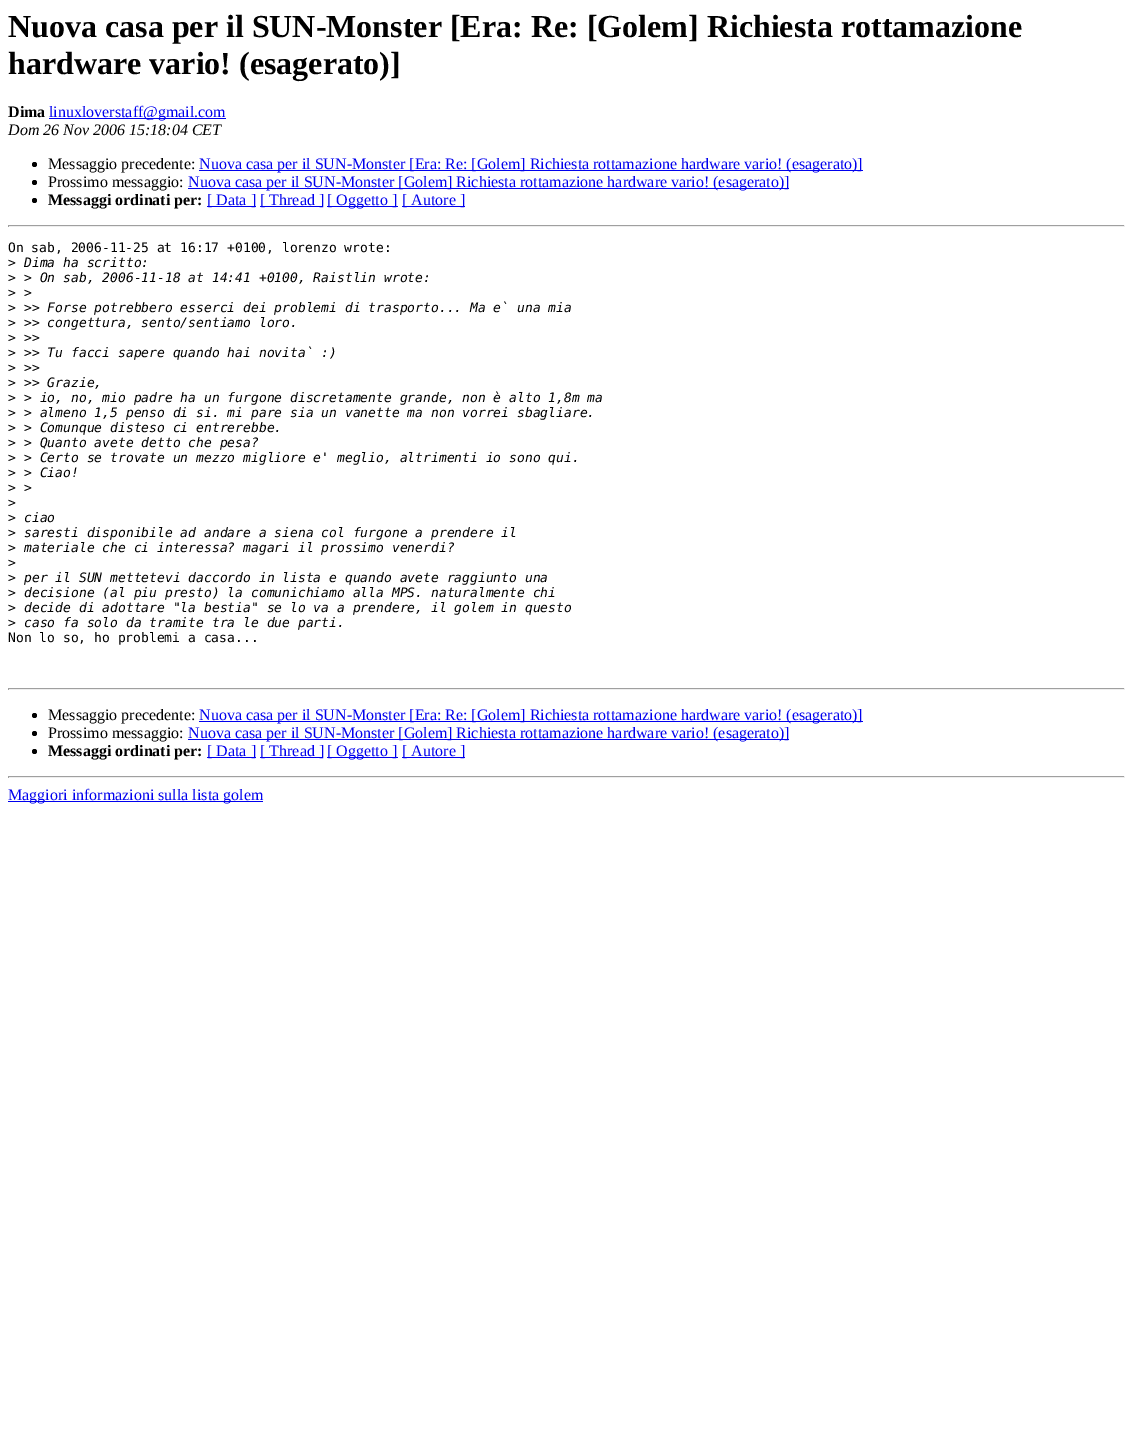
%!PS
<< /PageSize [1133 1449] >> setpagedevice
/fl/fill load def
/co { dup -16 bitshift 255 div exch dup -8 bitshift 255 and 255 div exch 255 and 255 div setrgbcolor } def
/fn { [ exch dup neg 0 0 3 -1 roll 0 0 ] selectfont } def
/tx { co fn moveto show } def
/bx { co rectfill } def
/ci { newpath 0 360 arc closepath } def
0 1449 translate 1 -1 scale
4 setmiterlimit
0 0 1133 1449 16#FFFFFF bx
49 118 177 1 16#0000EE bx
16#000000 co
34.5 164.5 2.5 ci fl
199 170 664 1 16#0000EE bx
16#000000 co
34.5 182.5 2.5 ci fl
188 188 601 1 16#0000EE bx
16#000000 co
34.5 200.5 2.5 ci fl
207 206 49 1 16#0000EE bx
260 206 63 1 16#0000EE bx
327 206 71 1 16#0000EE bx
402 206 63 1 16#0000EE bx
8 225 1117 1 16#9F9F9F bx
1124 225 1 2 16#EEEEEE bx
8 226 1117 1 16#EEEEEE bx
8 225 1 2 16#9F9F9F bx
8 688 1117 1 16#9F9F9F bx
1124 688 1 2 16#EEEEEE bx
8 689 1117 1 16#EEEEEE bx
8 688 1 2 16#9F9F9F bx
16#000000 co
34.5 715.5 2.5 ci fl
199 721 664 1 16#0000EE bx
16#000000 co
34.5 733.5 2.5 ci fl
188 739 601 1 16#0000EE bx
16#000000 co
34.5 751.5 2.5 ci fl
207 757 49 1 16#0000EE bx
260 757 63 1 16#0000EE bx
327 757 71 1 16#0000EE bx
402 757 63 1 16#0000EE bx
8 776 1117 1 16#9F9F9F bx
1124 776 1 2 16#EEEEEE bx
8 777 1117 1 16#EEEEEE bx
8 776 1 2 16#9F9F9F bx
8 801 255 1 16#0000EE bx
(Nuova casa per il SUN-Monster [Era: Re: [Golem] Richiesta rottamazione) 8 37 /LiberationSerif-Bold 32 16#000000 tx
(hardware vario! \(esagerato\)]) 8 74 /LiberationSerif-Bold 32 16#000000 tx
(Dima) 8 117 /LiberationSerif-Bold 16 16#000000 tx
(linuxloverstaff@gmail.com) 49 117 /LiberationSerif-Regular 16 16#0000EE tx
(Dom 26 Nov 2006 15:18:04 CET) 8 135 /LiberationSerif-Italic 16 16#000000 tx
(Messaggio precedente:) 48 169 /LiberationSerif-Regular 16 16#000000 tx
(Nuova casa per il SUN-Monster [Era: Re: [Golem] Richiesta rottamazione hardware vario! \(esagerato\)]) 199 169 /LiberationSerif-Regular 16 16#0000EE tx
(Prossimo messaggio:) 48 187 /LiberationSerif-Regular 16 16#000000 tx
(Nuova casa per il SUN-Monster [Golem] Richiesta rottamazione hardware vario! \(esagerato\)]) 188 187 /LiberationSerif-Regular 16 16#0000EE tx
(Messaggi ordinati per:) 48 205 /LiberationSerif-Bold 16 16#000000 tx
([ Data ]) 207 205 /LiberationSerif-Regular 16 16#0000EE tx
([ Thread ]) 260 205 /LiberationSerif-Regular 16 16#0000EE tx
([ Oggetto ]) 327 205 /LiberationSerif-Regular 16 16#0000EE tx
([ Autore ]) 402 205 /LiberationSerif-Regular 16 16#0000EE tx
(On sab, 2006-11-25 at 16:17 +0100, lorenzo wrote:) 8 252 /DejaVuSansMono-Regular 13 16#000000 tx
(>) 8 267 /DejaVuSansMono-Regular 13 16#000000 tx
(Dima ha scritto:) 24 267 /DejaVuSansMono-Italic 13 16#000000 tx
(>) 8 282 /DejaVuSansMono-Regular 13 16#000000 tx
(> On sab, 2006-11-18 at 14:41 +0100, Raistlin wrote:) 24 282 /DejaVuSansMono-Italic 13 16#000000 tx
(>) 8 297 /DejaVuSansMono-Regular 13 16#000000 tx
(>) 24 297 /DejaVuSansMono-Italic 13 16#000000 tx
(>) 8 312 /DejaVuSansMono-Regular 13 16#000000 tx
(>> Forse potrebbero esserci dei problemi di trasporto... Ma e` una mia) 24 312 /DejaVuSansMono-Italic 13 16#000000 tx
(>) 8 327 /DejaVuSansMono-Regular 13 16#000000 tx
(>> congettura, sento/sentiamo loro.) 24 327 /DejaVuSansMono-Italic 13 16#000000 tx
(>) 8 342 /DejaVuSansMono-Regular 13 16#000000 tx
(>>) 24 342 /DejaVuSansMono-Italic 13 16#000000 tx
(>) 8 357 /DejaVuSansMono-Regular 13 16#000000 tx
(>> Tu facci sapere quando hai novita` :\)) 24 357 /DejaVuSansMono-Italic 13 16#000000 tx
(>) 8 372 /DejaVuSansMono-Regular 13 16#000000 tx
(>>) 24 372 /DejaVuSansMono-Italic 13 16#000000 tx
(>) 8 387 /DejaVuSansMono-Regular 13 16#000000 tx
(>> Grazie,) 24 387 /DejaVuSansMono-Italic 13 16#000000 tx
(>) 8 402 /DejaVuSansMono-Regular 13 16#000000 tx
(> io, no, mio padre ha un furgone discretamente grande, non è alto 1,8m ma) 24 402 /DejaVuSansMono-Italic 13 16#000000 tx
(>) 8 417 /DejaVuSansMono-Regular 13 16#000000 tx
(> almeno 1,5 penso di si. mi pare sia un vanette ma non vorrei sbagliare.) 24 417 /DejaVuSansMono-Italic 13 16#000000 tx
(>) 8 432 /DejaVuSansMono-Regular 13 16#000000 tx
(> Comunque disteso ci entrerebbe.) 24 432 /DejaVuSansMono-Italic 13 16#000000 tx
(>) 8 447 /DejaVuSansMono-Regular 13 16#000000 tx
(> Quanto avete detto che pesa?) 24 447 /DejaVuSansMono-Italic 13 16#000000 tx
(>) 8 462 /DejaVuSansMono-Regular 13 16#000000 tx
(> Certo se trovate un mezzo migliore e' meglio, altrimenti io sono qui.) 24 462 /DejaVuSansMono-Italic 13 16#000000 tx
(>) 8 477 /DejaVuSansMono-Regular 13 16#000000 tx
(> Ciao!) 24 477 /DejaVuSansMono-Italic 13 16#000000 tx
(>) 8 492 /DejaVuSansMono-Regular 13 16#000000 tx
(>) 24 492 /DejaVuSansMono-Italic 13 16#000000 tx
(>) 8 507 /DejaVuSansMono-Regular 13 16#000000 tx
(>) 8 522 /DejaVuSansMono-Regular 13 16#000000 tx
(ciao) 24 522 /DejaVuSansMono-Italic 13 16#000000 tx
(>) 8 537 /DejaVuSansMono-Regular 13 16#000000 tx
(saresti disponibile ad andare a siena col furgone a prendere il) 24 537 /DejaVuSansMono-Italic 13 16#000000 tx
(>) 8 552 /DejaVuSansMono-Regular 13 16#000000 tx
(materiale che ci interessa? magari il prossimo venerdi?) 24 552 /DejaVuSansMono-Italic 13 16#000000 tx
(>) 8 567 /DejaVuSansMono-Regular 13 16#000000 tx
(>) 8 582 /DejaVuSansMono-Regular 13 16#000000 tx
(per il SUN mettetevi daccordo in lista e quando avete raggiunto una) 24 582 /DejaVuSansMono-Italic 13 16#000000 tx
(>) 8 597 /DejaVuSansMono-Regular 13 16#000000 tx
(decisione \(al piu presto\) la comunichiamo alla MPS. naturalmente chi) 24 597 /DejaVuSansMono-Italic 13 16#000000 tx
(>) 8 612 /DejaVuSansMono-Regular 13 16#000000 tx
(decide di adottare "la bestia" se lo va a prendere, il golem in questo) 24 612 /DejaVuSansMono-Italic 13 16#000000 tx
(>) 8 627 /DejaVuSansMono-Regular 13 16#000000 tx
(caso fa solo da tramite tra le due parti.) 24 627 /DejaVuSansMono-Italic 13 16#000000 tx
(Non lo so, ho problemi a casa...) 8 642 /DejaVuSansMono-Regular 13 16#000000 tx
(Messaggio precedente:) 48 720 /LiberationSerif-Regular 16 16#000000 tx
(Nuova casa per il SUN-Monster [Era: Re: [Golem] Richiesta rottamazione hardware vario! \(esagerato\)]) 199 720 /LiberationSerif-Regular 16 16#0000EE tx
(Prossimo messaggio:) 48 738 /LiberationSerif-Regular 16 16#000000 tx
(Nuova casa per il SUN-Monster [Golem] Richiesta rottamazione hardware vario! \(esagerato\)]) 188 738 /LiberationSerif-Regular 16 16#0000EE tx
(Messaggi ordinati per:) 48 756 /LiberationSerif-Bold 16 16#000000 tx
([ Data ]) 207 756 /LiberationSerif-Regular 16 16#0000EE tx
([ Thread ]) 260 756 /LiberationSerif-Regular 16 16#0000EE tx
([ Oggetto ]) 327 756 /LiberationSerif-Regular 16 16#0000EE tx
([ Autore ]) 402 756 /LiberationSerif-Regular 16 16#0000EE tx
(Maggiori informazioni sulla lista golem) 8 800 /LiberationSerif-Regular 16 16#0000EE tx
showpage
